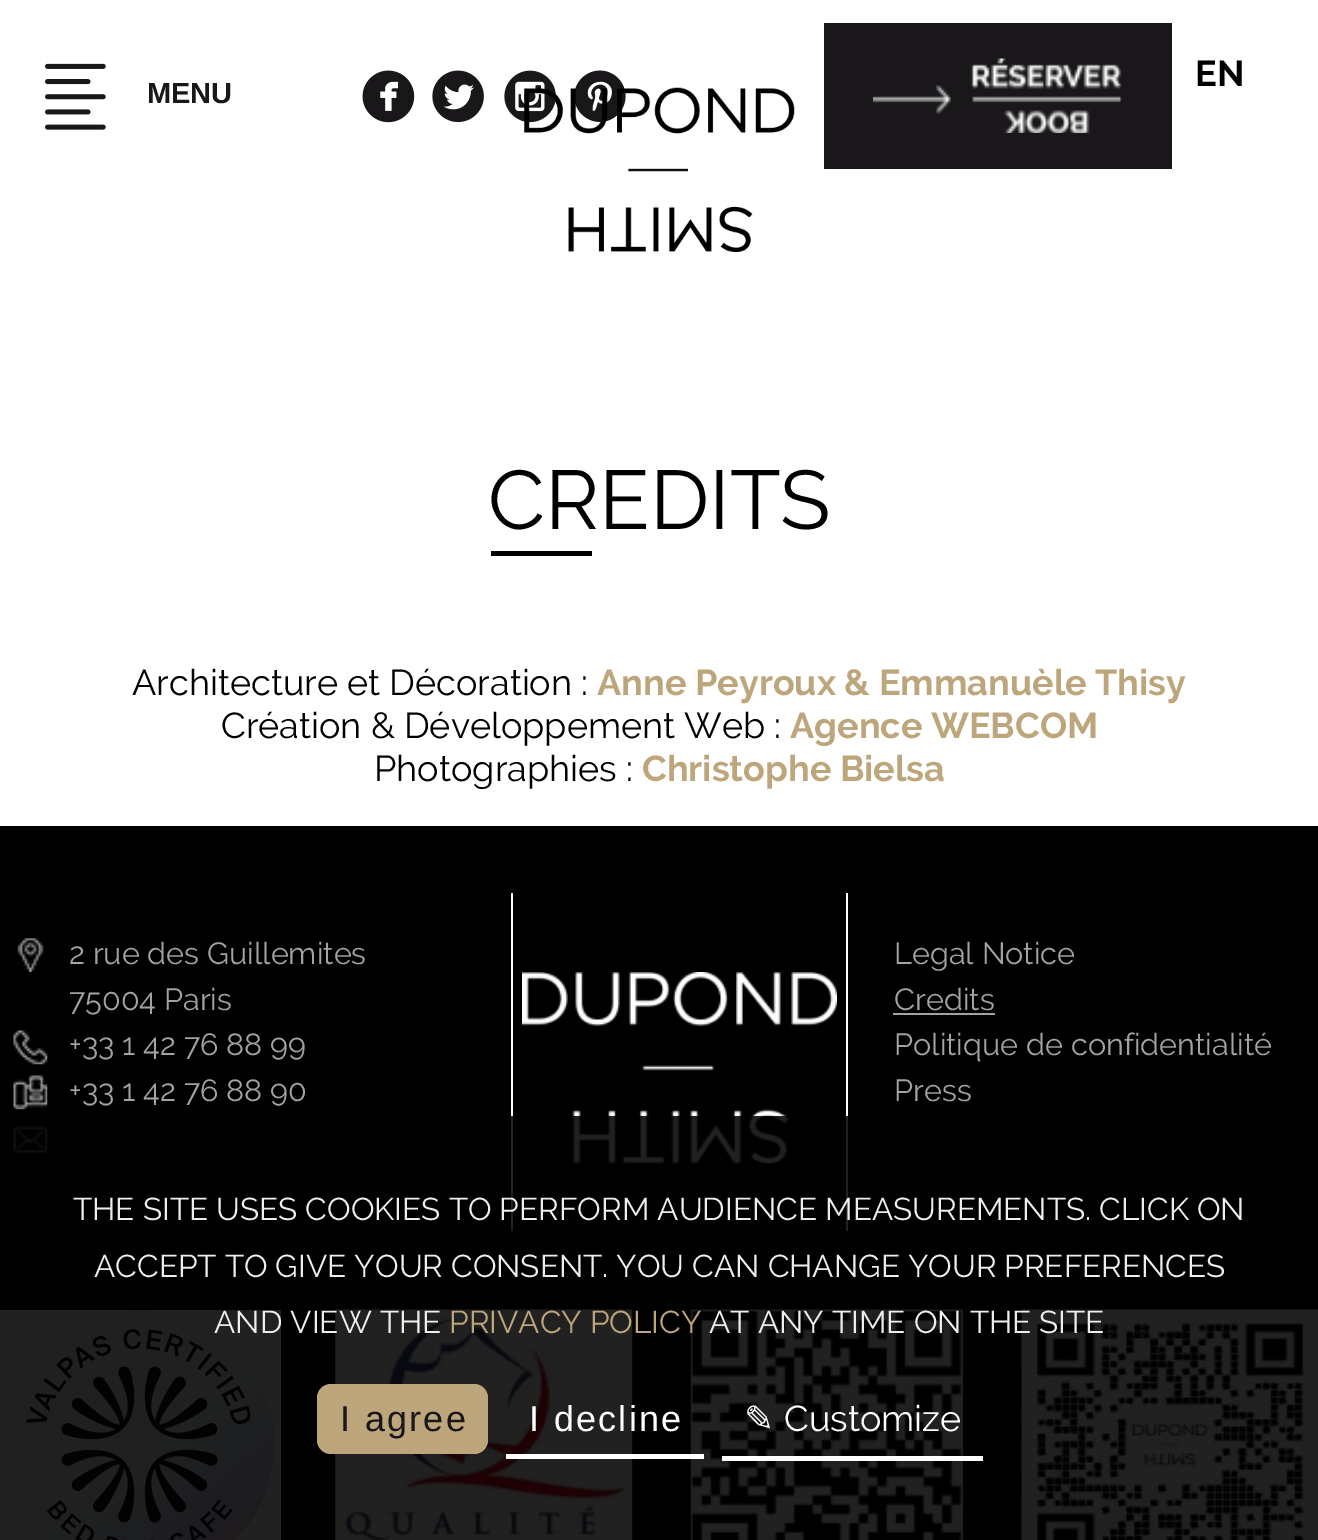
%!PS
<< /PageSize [1318 1540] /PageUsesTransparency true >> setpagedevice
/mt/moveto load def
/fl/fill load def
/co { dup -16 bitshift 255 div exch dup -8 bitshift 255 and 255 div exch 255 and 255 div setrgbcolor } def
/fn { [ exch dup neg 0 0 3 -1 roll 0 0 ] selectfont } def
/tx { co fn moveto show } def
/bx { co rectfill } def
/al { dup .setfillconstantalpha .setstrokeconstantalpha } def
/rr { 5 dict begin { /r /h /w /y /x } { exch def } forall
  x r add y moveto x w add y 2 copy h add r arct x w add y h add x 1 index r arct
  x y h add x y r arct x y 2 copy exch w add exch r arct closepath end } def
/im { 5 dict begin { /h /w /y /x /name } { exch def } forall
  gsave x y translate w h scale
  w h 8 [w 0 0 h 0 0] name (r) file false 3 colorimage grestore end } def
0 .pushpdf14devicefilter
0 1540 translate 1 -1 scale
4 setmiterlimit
0 0 1318 1540 16#FFFFFF bx
824 23 348 146 16#1A171B bx
(media/1.raw) 873 58 249 75 im
(media/2.raw) 45 63 61 67 im
(media/3.raw) 362 70 53 53 im
(media/4.raw) 432 70 52 53 im
(media/5.raw) 504 70 52 53 im
(media/6.raw) 575 70 51 52 im
(media/7.raw) 524 87 271 165 im
491 551 101 5 16#000000 bx
0 826 1318 714 16#000000 bx
(media/8.raw) 17 938 27 34 im
(media/9.raw) 13 1030 35 35 im
(media/10.raw) 13 1075 35 35 im
(media/11.raw) 13 1124 35 31 im
511 893 2 338 16#FFFFFF bx
(media/12.raw) 522 972 315 192 im
846 893 2 338 16#FFFFFF bx
893 1013 102 2 16#A3A2A4 bx
0 1310 281 230 16#FFFFFF bx
(media/13.raw) 5 1310 270 230 im
(media/14.raw) 335 1309 298 231 im
(media/15.raw) 690 1309 273 231 im
(media/16.raw) 1021 1309 297 231 im
0.87 al
0 1116 1318 424 16#000000 bx
1 al
16#BEA67C co
317 1384 171 70 14 rr fl
506 1454 198 5 16#FFFFFF bx
722 1456 261 5 16#FFFFFF bx
(EN) 1195 86 /Raleway-Bold 36 16#000000 tx
(MENU) 147 103 /LiberationSans-Bold 29 16#1A171B tx
(CREDITS) 488 529 /Raleway-Regular 83 16#000000 tx
(Architecture et Décoration :) 132 695 /Raleway-Regular 36 16#000000 tx
(Anne Peyroux & Emmanuèle Thisy) 597 695 /Raleway-Bold 36 16#BEA67C tx
(Création & Développement Web :) 221 738 /Raleway-Regular 36 16#000000 tx
(Agence WEBCOM) 790 738 /Raleway-Bold 36 16#BEA67C tx
(Photographies :) 374 781 /Raleway-Regular 36 16#000000 tx
(Christophe Bielsa) 642 781 /Raleway-Bold 36 16#BEA67C tx
(2 rue des Guillemites) 69 964 /Raleway-Regular 30.6 16#A3A2A4 tx
(75004 Paris) 69 1010 /Raleway-Regular 30.6 16#A3A2A4 tx
(+33 1 42 76 88 99) 69 1055 /Raleway-Regular 30.6 16#A3A2A4 tx
(+33 1 42 76 88 90) 69 1101 /Raleway-Regular 30.6 16#A3A2A4 tx
(Legal Notice) 894 964 /Raleway-Regular 30.6 16#A3A2A4 tx
(Credits) 894 1010 /Raleway-Regular 30.6 16#A3A2A4 tx
(Politique de confidentialité) 894 1055 /Raleway-Regular 30.6 16#A3A2A4 tx
(Press) 894 1101 /Raleway-Regular 30.6 16#A3A2A4 tx
(THE SITE USES COOKIES TO PERFORM AUDIENCE MEASUREMENTS. CLICK ON) 73 1220 /Raleway-Regular 31.5 16#EEEEEE tx
(ACCEPT TO GIVE YOUR CONSENT. YOU CAN CHANGE YOUR PREFERENCES) 94 1277 /Raleway-Regular 31.5 16#EEEEEE tx
(AND VIEW THE) 214 1333 /Raleway-Regular 31.5 16#EEEEEE tx
(PRIVACY POLICY) 449 1333 /Raleway-Regular 31.5 16#BEA67C tx
(AT ANY TIME ON THE SITE) 709 1333 /Raleway-Regular 31.5 16#EEEEEE tx
/LiberationSans-Regular 36 fn
16#1A171B co
340 1431 mt 2.25 0 (I agree) ashow
16#FFFFFF co
529 1431 mt 2.25 0 (I decline) ashow
(✎) 744 1431 /DejaVuSans-Regular 36 16#FFFFFF tx
(Customize) 784 1431 /Raleway-Regular 36 16#FFFFFF tx
.poppdf14devicefilter showpage
